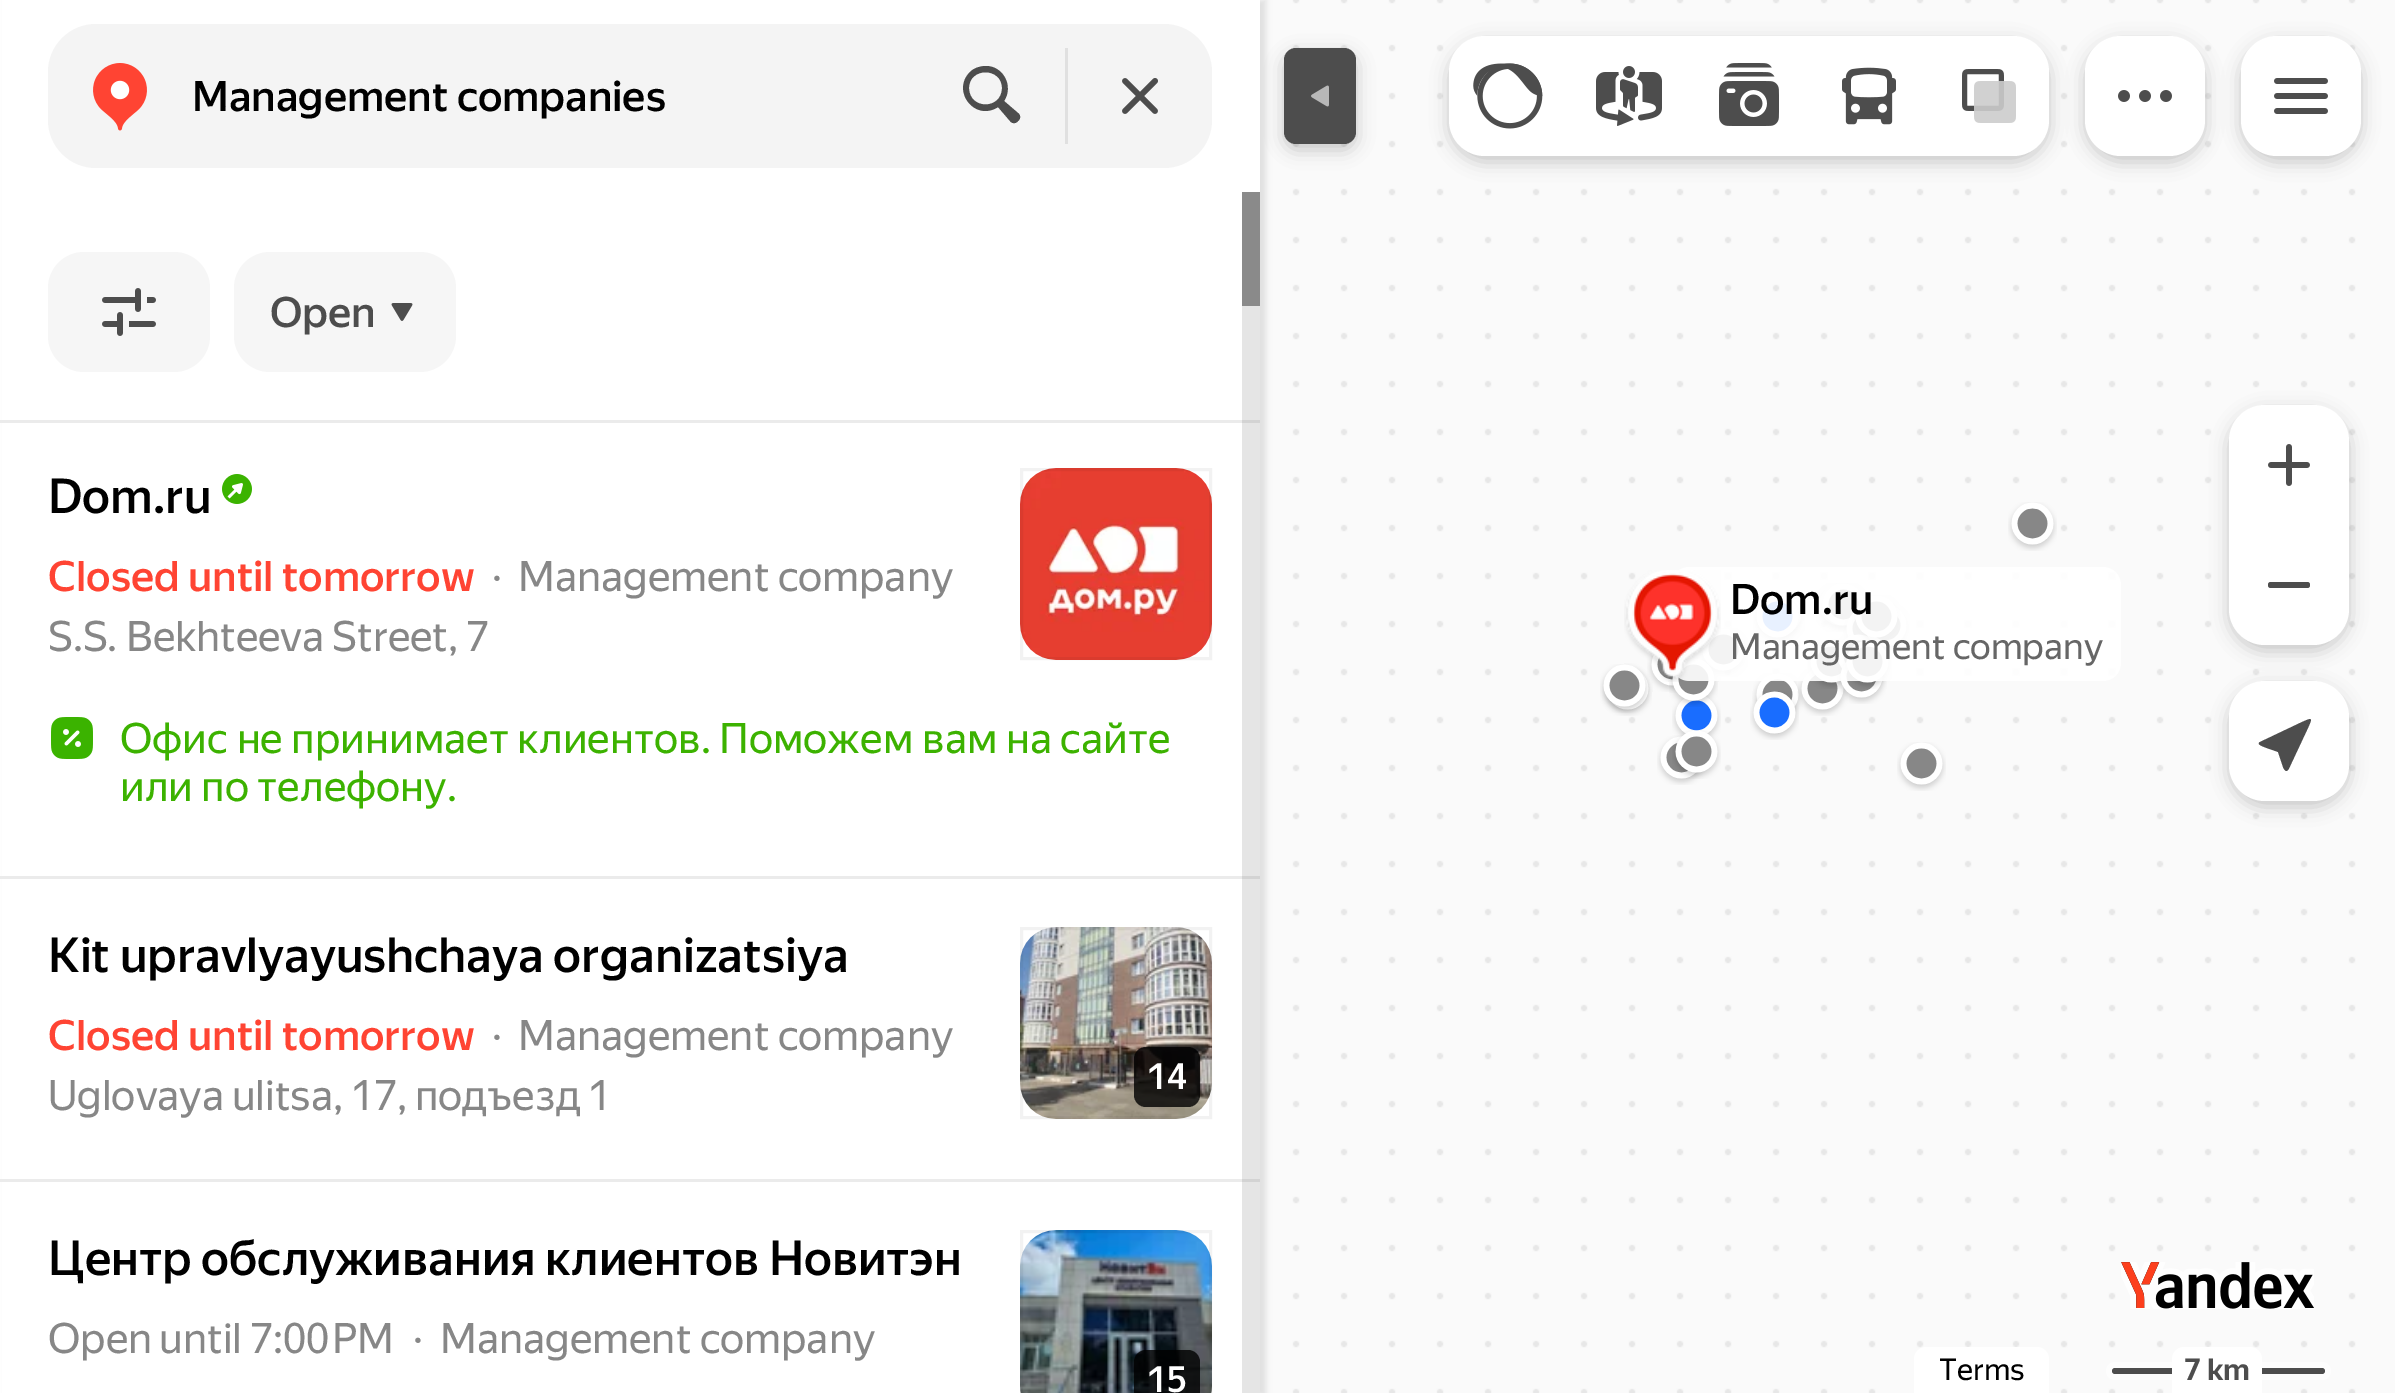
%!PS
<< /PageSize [2395 1393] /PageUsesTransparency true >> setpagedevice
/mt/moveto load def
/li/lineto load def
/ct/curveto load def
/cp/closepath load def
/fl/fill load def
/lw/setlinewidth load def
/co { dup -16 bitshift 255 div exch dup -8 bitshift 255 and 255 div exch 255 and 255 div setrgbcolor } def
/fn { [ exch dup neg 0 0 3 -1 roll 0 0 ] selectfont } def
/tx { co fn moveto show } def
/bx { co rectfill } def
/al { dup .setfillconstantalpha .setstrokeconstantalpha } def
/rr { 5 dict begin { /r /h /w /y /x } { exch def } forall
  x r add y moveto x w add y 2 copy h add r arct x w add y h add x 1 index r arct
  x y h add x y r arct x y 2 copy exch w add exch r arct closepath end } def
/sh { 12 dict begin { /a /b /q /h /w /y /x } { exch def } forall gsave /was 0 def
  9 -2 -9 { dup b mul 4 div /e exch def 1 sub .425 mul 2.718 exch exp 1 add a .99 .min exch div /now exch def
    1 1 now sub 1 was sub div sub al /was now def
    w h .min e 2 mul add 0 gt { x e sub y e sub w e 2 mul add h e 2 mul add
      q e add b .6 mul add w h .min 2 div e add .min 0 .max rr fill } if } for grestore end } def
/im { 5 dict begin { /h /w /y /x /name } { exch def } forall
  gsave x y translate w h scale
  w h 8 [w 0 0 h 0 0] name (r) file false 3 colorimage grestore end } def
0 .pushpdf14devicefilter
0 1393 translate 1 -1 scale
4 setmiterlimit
0 0 2395 1393 16#FFFFFF bx
(media/1.raw) 1260 0 1135 1393 im
16#000000 co
6 0 1260 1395 0 3 .1 sh
1284 54 72 96 12 9 .2 sh
2 0 1258 1393 16#FFFFFF bx
16#F4F4F4 co
48 24 1164 144 48 rr fl
(media/2.raw) 93 63 54 68 im
16#4D4D4D co
986 66 mt 980 66 974 68 970 72 ct 951 91 975 122 998 107 ct 1010 121 li 1012 124 1016 124 1018 121 ct 1021 119 1021 115 1018 113 ct 1004 101 li 1014 86 1003 66 986 66 ct cp 969 88 mt 969 67 1002 67 1002 88 ct 1002 110 969 110 969 88 ct cp eofill
1065 48 3 96 16#E0E0E0 bx
(media/3.raw) 1122 78 36 36 im
16#000000 co
1449 42 600 120 36 9 .2 sh
16#FFFFFF co
1485 36 mt 1569 36 li 1569 156 li 1485 156 li 1465 156 1449 140 1449 120 ct 1449 72 li 1449 52 1465 36 1485 36 ct cp fl
(media/4.raw) 1473 63 70 66 im
1569 36 360 120 16#FFFFFF bx
(media/5.raw) 1596 66 66 60 im
1929 36 mt 2013 36 li 2033 36 2049 52 2049 72 ct 2049 120 li 2049 140 2033 156 2013 156 ct 1929 156 li cp fl
(media/6.raw) 1962 69 54 54 im
(media/7.raw) 1719 63 60 63 im
(media/8.raw) 1842 67 54 58 im
16#000000 co
2085 42 120 120 36 9 .2 sh
16#FFFFFF co
2085 36 120 120 36 rr fl
(media/9.raw) 2118 90 54 12 im
16#000000 co
2241 42 120 120 36 9 .2 sh
16#FFFFFF co
2241 36 120 120 36 rr fl
(media/10.raw) 2274 78 54 36 im
16#000000 co
2229 411 120 240 36 9 .2 sh
16#FFFFFF co
2265 405 mt 2313 405 li 2333 405 2349 421 2349 441 ct 2349 525 li 2229 525 li 2229 441 li 2229 421 2245 405 2265 405 ct cp fl
(media/11.raw) 2268 444 42 42 im
2229 525 mt 2349 525 li 2349 609 li 2349 629 2333 645 2313 645 ct 2265 645 li 2245 645 2229 629 2229 609 ct cp fl
16#4D4D4D co
2268 585 mt 2268 583 2269 582 2271 582 ct 2307 582 li 2309 582 2310 583 2310 585 ct 2310 587 2309 588 2307 588 ct 2271 588 li 2269 588 2268 587 2268 585 ct cp eofill
16#000000 co
2229 687 120 120 36 9 .2 sh
16#FFFFFF co
2229 681 120 120 36 rr fl
16#4D4D4D co
2260 742 mt 2300 723 li 2313 717 2313 717 2307 730 ct 2292 762 li 2289 768 2287 776 2283 767 ct 2278 752 li 2271 749 2254 745 2260 742 ct cp eofill
1284 48 72 96 12 rr fl
(media/12.raw) 1311 85 18 22 im
0 420 1260 3 16#EBEBEB bx
16#F6F6F6 co
48 252 162 120 36 rr fl
(media/13.raw) 102 288 54 48 im
234 252 222 120 36 rr fl
(media/14.raw) 391 303 22 18 im
0 876 1260 3 16#EBEBEB bx
(media/15.raw) 222 474 30 30 im
(media/16.raw) 1020 468 192 192 im
0.05 al
16#000000 co
3 lw
1021.5 469.5 189 189 rectstroke
1 al
(media/17.raw) 51 717 42 42 im
0 1179 1260 3 16#EBEBEB bx
(media/18.raw) 1020 927 192 192 im
0.05 al
16#000000 co
1021.5 928.5 189 189 rectstroke
0.8 al
1134 1047 66 60 12 rr fl
1 al
(media/19.raw) 1020 1230 192 163 im
0.05 al
1021.5 1231.5 189 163 rectstroke
0.8 al
1146 1350 mt 1188 1350 li 1194.5 1350 1200 1355.5 1200 1362 ct 1200 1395 li 1134 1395 li 1134 1362 li 1134 1355.5 1139.5 1350 1146 1350 ct cp fl
1 al
1242 192 18 114 16#8A8A8A bx
0.1 al
1242 306 18 1087 16#000000 bx
1 al
(media/20.raw) 2121 1262 193 47 im
16#FFFFFF co
1926 1347 mt 2037 1347 li 2043.5 1347 2049 1352.5 2049 1359 ct 2049 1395 li 1914 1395 li 1914 1359 li 1914 1352.5 1919.5 1347 1926 1347 ct cp fl
16#FDFDFD co
2106 1362 225 18 9 rr fl
16#4D4D4D co
2112 1368 213 6 3 rr fl
16#FFFFFF co
2184 1347 mt 2250 1347 li 2256.5 1347 2262 1352.5 2262 1359 ct 2262 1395 li 2172 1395 li 2172 1359 li 2172 1352.5 2177.5 1347 2184 1347 ct cp fl
(media/21.raw) 2008 502 49 49 im
(media/29.raw) 1699 628 49 49 im
(media/38.raw) 1603 668 49 48 im
(media/35.raw) 1600 664 49 49 im
(media/33.raw) 1648 651 47 41 im
(media/41.raw) 1672 696 49 42 im
(media/36.raw) 1669 658 49 49 im
0.9 al
1689 567 mt 1725 567 li 1725 681 li 1689 681 li 1679 681 1671 673 1671 663 ct 1671 585 li 1671 575 1679 567 1689 567 ct cp fl
1 al
(media/22.raw) 1624 570 97 112 im
(media/23.raw) 1816 583 48 49 im
(media/24.raw) 1756 592 49 49 im
(media/25.raw) 1819 583 47 49 im
(media/26.raw) 1753 595 49 49 im
(media/30.raw) 1843 609 44 40 im
(media/39.raw) 1753 673 49 41 im
(media/40.raw) 1798 669 49 47 im
(media/31.raw) 1807 640 36 49 im
(media/32.raw) 1834 634 39 41 im
(media/28.raw) 1861 605 49 48 im
(media/37.raw) 1837 660 49 44 im
(media/34.raw) 1843 640 49 49 im
(media/27.raw) 1852 595 49 49 im
0.9 al
1725 567 mt 2103 567 li 2113 567 2121 575 2121 585 ct 2121 663 li 2121 673 2113 681 2103 681 ct 1725 681 li cp fl
1 al
(media/42.raw) 1750 691 49 49 im
(media/44.raw) 1657 736 47 49 im
(media/43.raw) 1672 730 49 49 im
(media/45.raw) 1897 742 49 49 im
(Management companies) 192 111 /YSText-Medium 42 16#000000 tx
(Open) 270 327 /YSText-Medium 42 16#4D4D4D tx
(Dom.ru) 48 513 /YSText-Medium 48 16#000000 tx
(Closed until tomorrow) 48 591 /YSText-Medium 42 16#FF4433 tx
(·) 492 591 /YSText-Regular 42 16#878787 tx
(Management company) 518 591 /YSText-Regular 42 16#878787 tx
(S.S. Bekhteeva Street, 7) 48 651 /YSText-Regular 42 16#878787 tx
(Офис не принимает клиентов. Поможем вам на сайте) 120 753 /YSText-Regular 42 16#3CB200 tx
(или по телефону.) 120 801 /YSText-Regular 42 16#3CB200 tx
(Kit upravlyayushchaya organizatsiya) 48 972 /YSText-Medium 48 16#000000 tx
(Closed until tomorrow) 48 1050 /YSText-Medium 42 16#FF4433 tx
(·) 492 1050 /YSText-Regular 42 16#878787 tx
(Management company) 518 1050 /YSText-Regular 42 16#878787 tx
(14) 1147 1089 /YSText-Medium 36 16#FFFFFF tx
/YSText-Regular 42 fn
16#878787 co
48 1110 mt -.5 0 32 (Uglovaya ulitsa, 17, подъезд 1) widthshow
(Центр обслуживания клиентов Новитэн) 48 1275 /YSText-Medium 48 16#000000 tx
/YSText-Regular 42 fn
16#878787 co
48 1353 mt -1 0 32 (Open until 7:00 PM) widthshow
(·) 413 1353 /YSText-Regular 42 16#878787 tx
(Management company) 440 1353 /YSText-Regular 42 16#878787 tx
(15) 1147 1392 /YSText-Medium 36 16#FFFFFF tx
(Terms) 1939 1380 /YSText-Regular 30 16#000000 tx
(7 km) 2184 1380 /YSText-Bold 30 16#4D4D4D tx
(Dom.ru) 1730 614 /YSText-Medium 42 16#000000 tx
(Management company) 1730 659 /YSText-Regular 36 16#666666 tx
.poppdf14devicefilter showpage
